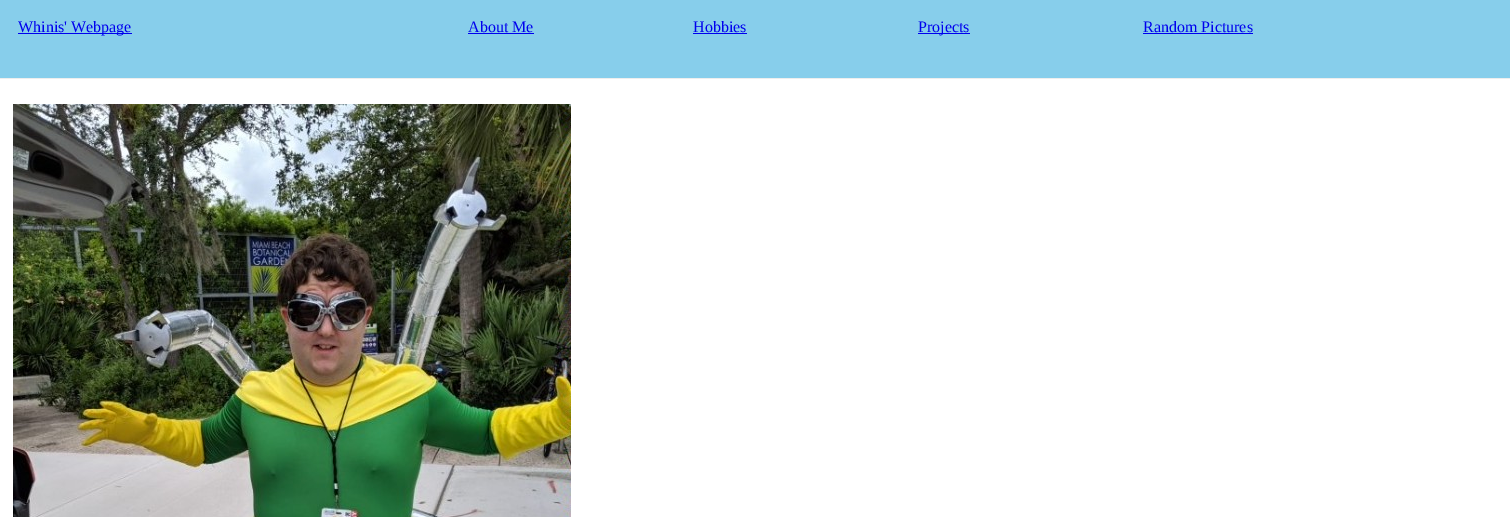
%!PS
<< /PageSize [1510 517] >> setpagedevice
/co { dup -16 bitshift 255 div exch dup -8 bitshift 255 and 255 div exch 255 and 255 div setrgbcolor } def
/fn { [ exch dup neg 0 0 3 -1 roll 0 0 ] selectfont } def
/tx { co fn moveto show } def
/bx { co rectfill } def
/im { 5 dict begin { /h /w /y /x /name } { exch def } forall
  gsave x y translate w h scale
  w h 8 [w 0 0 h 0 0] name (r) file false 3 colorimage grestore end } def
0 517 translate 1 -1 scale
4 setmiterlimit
0 0 1510 517 16#FFFFFF bx
0 0 1510 78 16#87CEEB bx
0 78 1510 1 16#EEEEEE bx
18 33 114 1 16#0000EE bx
468 33 66 1 16#0000EE bx
693 33 54 1 16#0000EE bx
918 33 52 1 16#0000EE bx
1143 33 110 1 16#0000EE bx
(media/1.raw) 13 104 558 413 im
(Whinis' Webpage) 18 32 /LiberationSerif-Regular 16 16#0000EE tx
(About Me) 468 32 /LiberationSerif-Regular 16 16#0000EE tx
(Hobbies) 693 32 /LiberationSerif-Regular 16 16#0000EE tx
(Projects) 918 32 /LiberationSerif-Regular 16 16#0000EE tx
(Random Pictures) 1143 32 /LiberationSerif-Regular 16 16#0000EE tx
showpage
